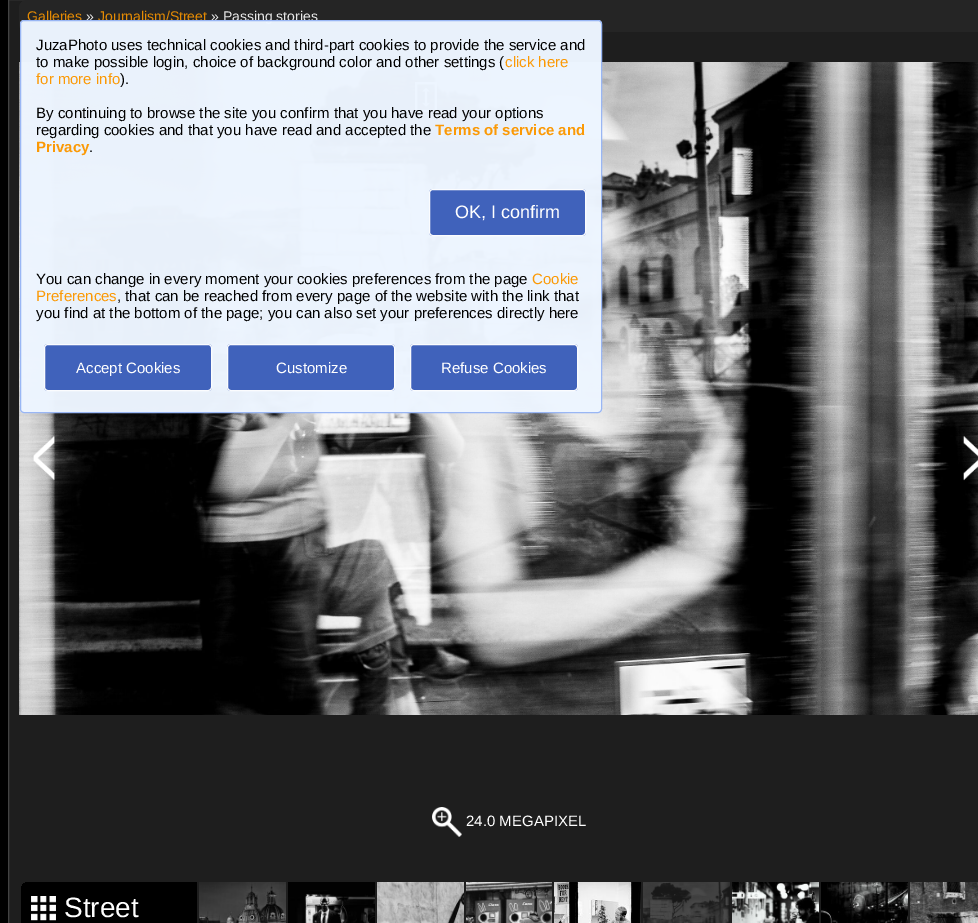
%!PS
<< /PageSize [978 923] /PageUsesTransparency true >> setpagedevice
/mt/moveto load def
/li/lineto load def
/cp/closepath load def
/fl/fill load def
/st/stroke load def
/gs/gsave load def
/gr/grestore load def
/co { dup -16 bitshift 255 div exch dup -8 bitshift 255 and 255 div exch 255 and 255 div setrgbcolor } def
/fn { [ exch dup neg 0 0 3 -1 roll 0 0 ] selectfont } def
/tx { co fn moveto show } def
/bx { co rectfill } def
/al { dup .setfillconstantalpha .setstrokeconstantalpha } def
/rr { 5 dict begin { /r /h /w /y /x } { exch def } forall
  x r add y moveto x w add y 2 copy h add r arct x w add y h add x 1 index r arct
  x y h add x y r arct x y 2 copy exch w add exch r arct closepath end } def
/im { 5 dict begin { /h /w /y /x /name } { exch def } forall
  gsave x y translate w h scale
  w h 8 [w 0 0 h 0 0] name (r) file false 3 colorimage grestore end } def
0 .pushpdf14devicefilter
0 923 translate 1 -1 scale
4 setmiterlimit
0 0 978 923 16#000000 bx
16#1E1E1E co
8.5 -.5 mt 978.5 -.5 li 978.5 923.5 li 8.5 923.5 li cp gs fl gr
16#424242 co
st
16#252525 co
19 0 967 32 8 rr fl
(media/1.raw) 19 62 959 653 im
(media/2.raw) 415 82 22 30 im
(media/3.raw) 33 436 22 45 im
(media/4.raw) 963 436 15 45 im
(media/5.raw) 432 807 30 30 im
gs
19 880 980 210 15 rr clip newpath
21 882 176 41 16#000000 bx
gr
(media/6.raw) 31 896 25 25 im
(media/7.raw) 199 882 87 41 im
(media/8.raw) 288 882 87 41 im
(media/9.raw) 377 882 87 41 im
(media/10.raw) 466 882 86 41 im
(media/11.raw) 554 882 87 41 im
(media/12.raw) 643 882 87 41 im
(media/13.raw) 732 882 87 41 im
(media/14.raw) 821 882 87 41 im
(media/15.raw) 910 882 68 41 im
(Galleries) 27 21 /LiberationSans-Regular 14 16#E58B03 tx
(») 86 21 /LiberationSans-Regular 14 16#E9E9E9 tx
(Journalism/Street) 98 21 /LiberationSans-Regular 14 16#E58B03 tx
(» Passing stories) 211 21 /LiberationSans-Regular 14 16#E9E9E9 tx
(24.0 MEGAPIXEL) 466 826 /LiberationSans-Regular 15 16#FFFFFF tx
(Street) 64 917 /LiberationSans-Regular 28 16#FFFFFF tx
0.98 al
16#EDF5FF co
20 20 582 393 4 rr fl
16#97B5F4 co
20.5 20.5 581 392 3.5 rr st
1 al
(JuzaPhoto uses technical cookies and third-part cookies to provide the service and) 36 50 /LiberationSans-Regular 15 16#010101 tx
(to make possible login, choice of background color and other settings \() 36 67 /LiberationSans-Regular 15 16#010101 tx
(click here) 505 67 /LiberationSans-Regular 15 16#FB9905 tx
(for more info) 36 84 /LiberationSans-Regular 15 16#FB9905 tx
(\).) 120 84 /LiberationSans-Regular 15 16#010101 tx
(By continuing to browse the site you confirm that you have read your options) 36 118 /LiberationSans-Regular 15 16#010101 tx
(regarding cookies and that you have read and accepted the) 36 135 /LiberationSans-Regular 15 16#010101 tx
(Terms of service and) 435 135 /LiberationSans-Bold 15 16#FB9905 tx
(Privacy) 36 152 /LiberationSans-Bold 15 16#FB9905 tx
(.) 89 152 /LiberationSans-Regular 15 16#010101 tx
0.98 al
16#3D5FBA co
429 189 157 47 4 rr fl
16#FFFFFF co
429.5 189.5 156 46 3.5 rr st
1 al
(OK, I confirm) 455 218 /LiberationSans-Regular 18 16#FFFFFF tx
(You can change in every moment your cookies preferences from the page) 36 284 /LiberationSans-Regular 15 16#010101 tx
(Cookie) 532 284 /LiberationSans-Regular 15 16#FB9905 tx
(Preferences) 36 301 /LiberationSans-Regular 15 16#FB9905 tx
(, that can be reached from every page of the website with the link that) 117 301 /LiberationSans-Regular 15 16#010101 tx
(you find at the bottom of the page; you can also set your preferences directly here) 36 318 /LiberationSans-Regular 15 16#010101 tx
0.98 al
16#3D5FBA co
44 344 168 47 4 rr fl
16#FFFFFF co
44.5 344.5 167 46 3.5 rr st
1 al
(Accept Cookies) 76 373 /LiberationSans-Regular 15 16#FFFFFF tx
0.98 al
16#3D5FBA co
227 344 168 47 4 rr fl
16#FFFFFF co
227.5 344.5 167 46 3.5 rr st
1 al
(Customize) 276 373 /LiberationSans-Regular 15 16#FFFFFF tx
0.98 al
16#3D5FBA co
410 344 168 47 4 rr fl
16#FFFFFF co
410.5 344.5 167 46 3.5 rr st
1 al
(Refuse Cookies) 441 373 /LiberationSans-Regular 15 16#FFFFFF tx
.poppdf14devicefilter showpage
